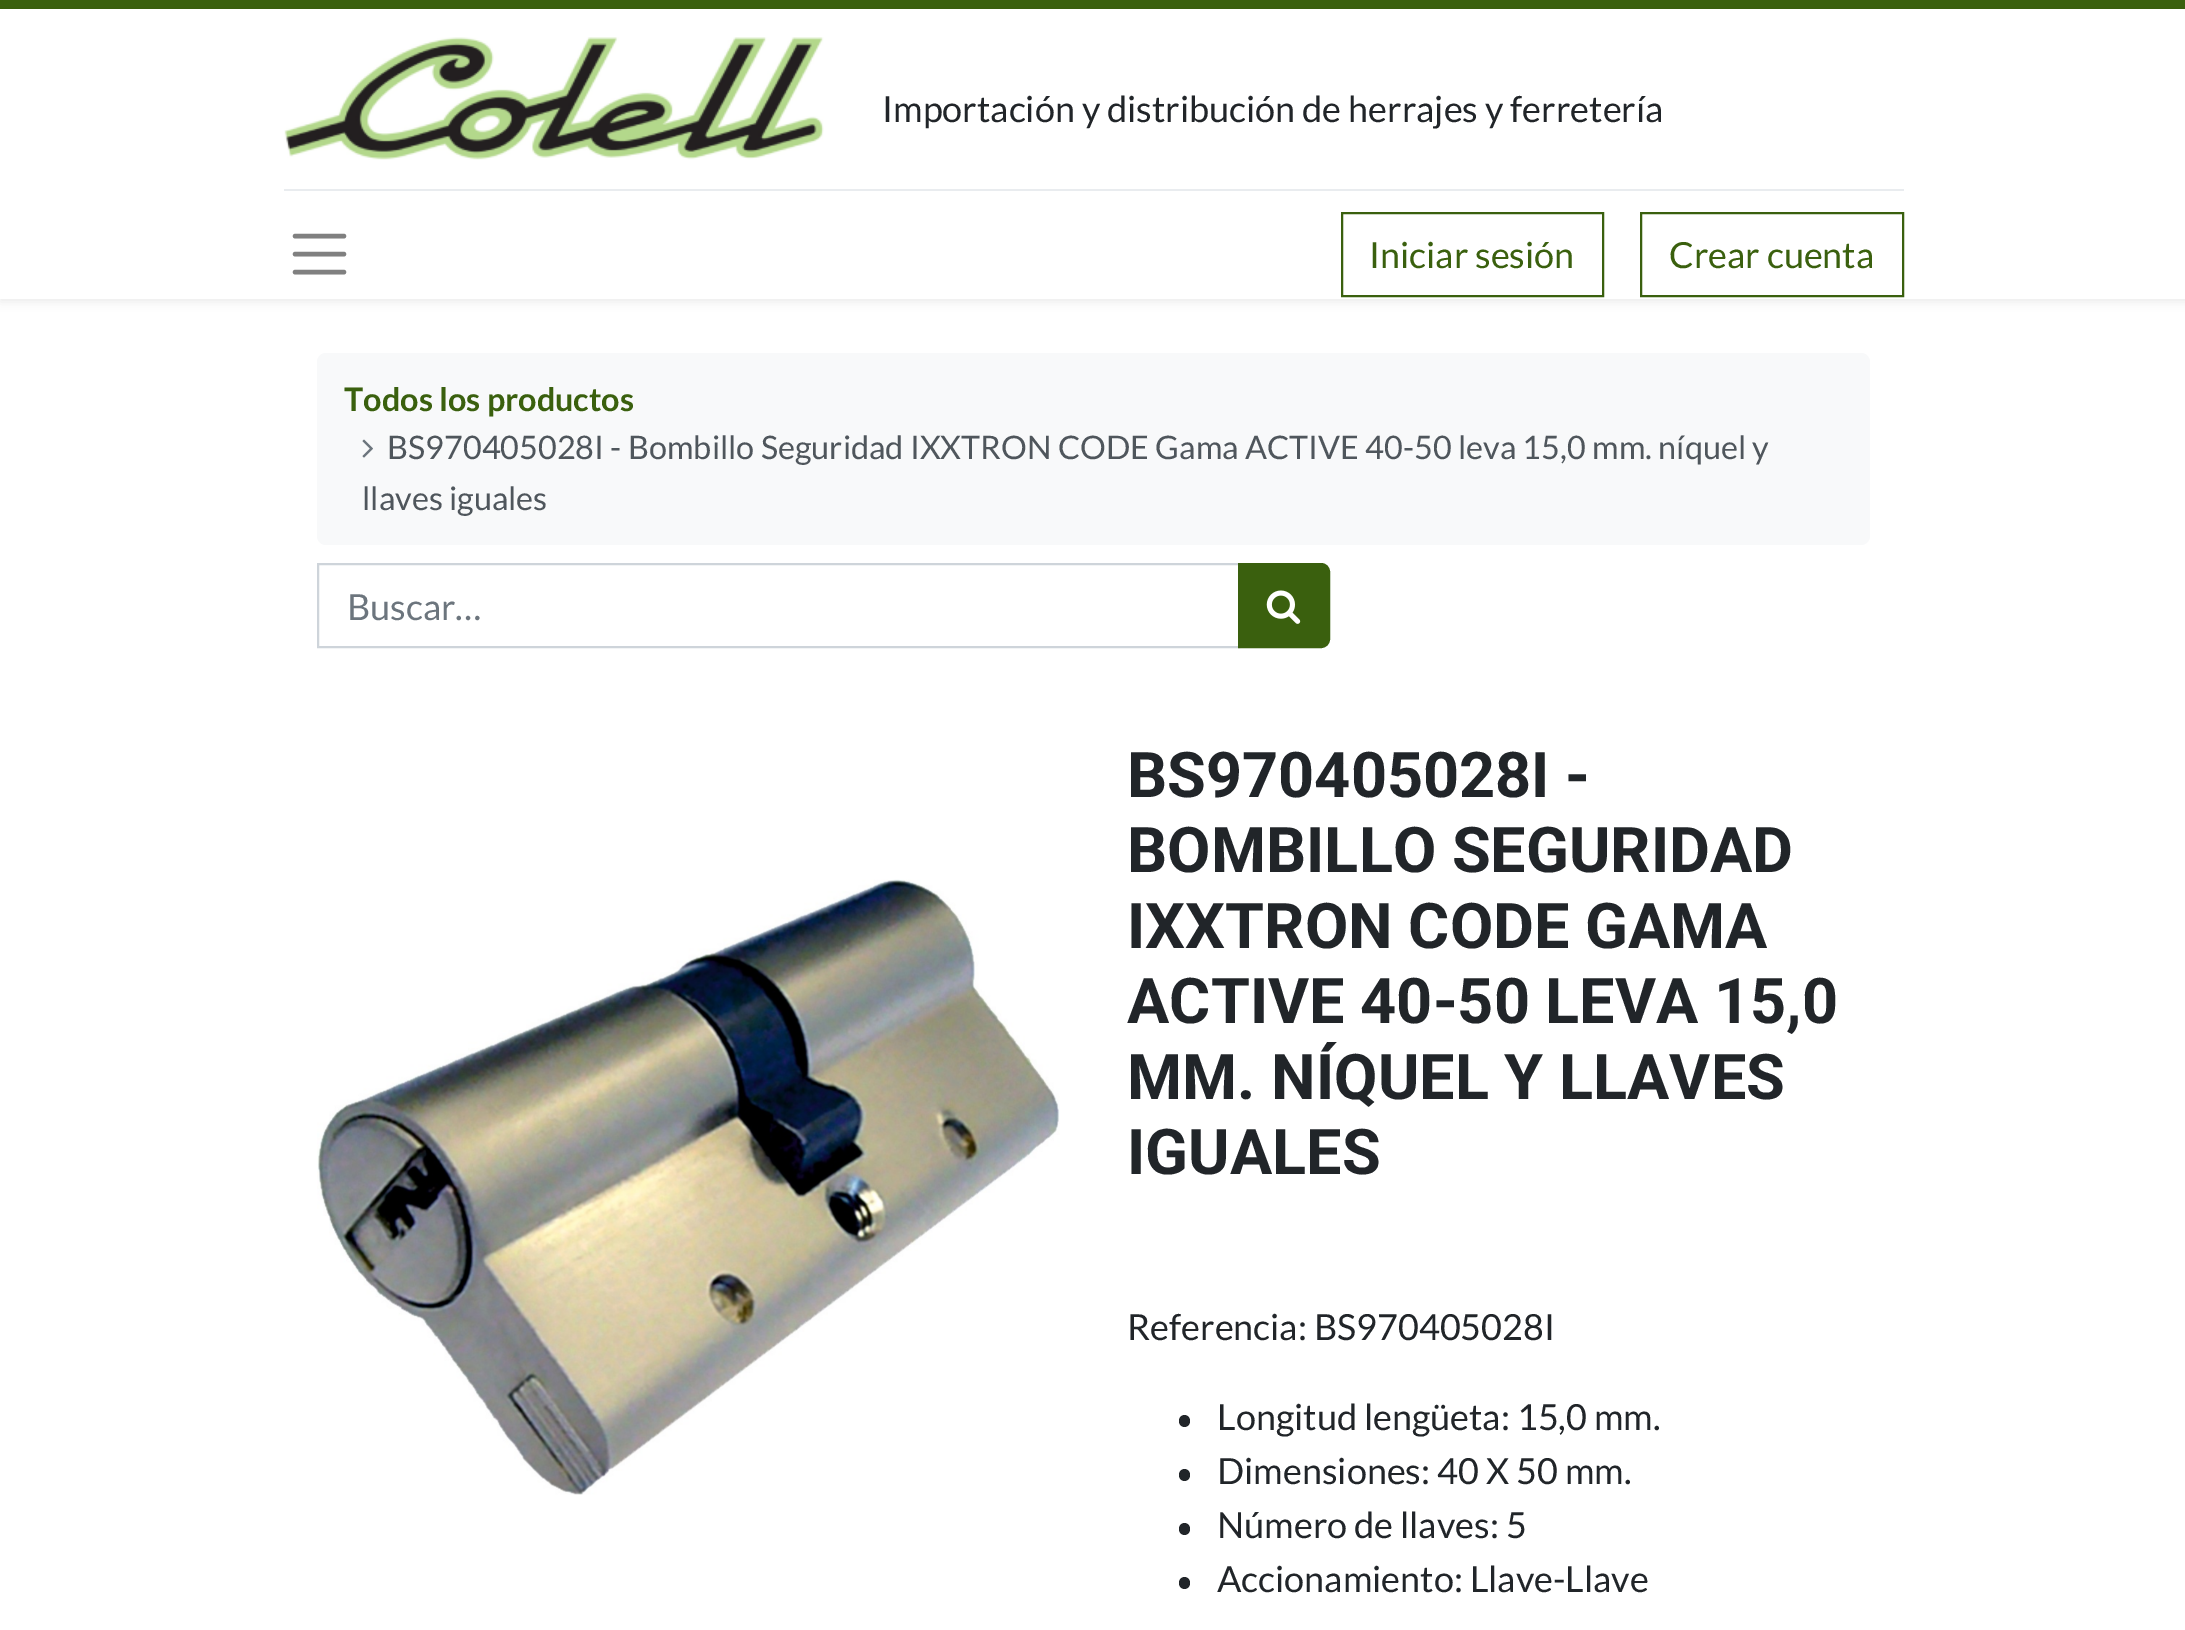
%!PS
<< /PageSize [2185 1630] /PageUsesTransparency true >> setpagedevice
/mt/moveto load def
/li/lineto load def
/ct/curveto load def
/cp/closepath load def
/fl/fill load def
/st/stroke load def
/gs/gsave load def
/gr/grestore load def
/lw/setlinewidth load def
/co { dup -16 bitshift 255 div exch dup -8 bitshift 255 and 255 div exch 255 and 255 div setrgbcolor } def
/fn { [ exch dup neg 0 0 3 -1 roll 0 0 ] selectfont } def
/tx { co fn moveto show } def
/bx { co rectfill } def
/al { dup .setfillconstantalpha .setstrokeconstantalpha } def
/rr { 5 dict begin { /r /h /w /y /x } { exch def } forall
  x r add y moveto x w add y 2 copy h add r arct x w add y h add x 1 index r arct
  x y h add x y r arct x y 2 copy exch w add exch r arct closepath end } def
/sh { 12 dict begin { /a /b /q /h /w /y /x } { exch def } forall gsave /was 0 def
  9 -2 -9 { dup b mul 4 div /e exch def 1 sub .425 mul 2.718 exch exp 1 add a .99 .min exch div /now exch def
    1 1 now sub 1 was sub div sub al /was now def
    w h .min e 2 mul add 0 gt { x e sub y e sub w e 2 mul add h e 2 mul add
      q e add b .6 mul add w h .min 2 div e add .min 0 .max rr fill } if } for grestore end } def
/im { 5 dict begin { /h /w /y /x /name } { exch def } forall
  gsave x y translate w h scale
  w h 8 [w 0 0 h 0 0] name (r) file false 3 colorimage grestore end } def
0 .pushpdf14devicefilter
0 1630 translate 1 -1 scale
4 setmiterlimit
0 0 2185 1630 16#FFFFFF bx
0 0 2185 9 16#3A600E bx
gs
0 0 mt 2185 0 li 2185 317 li 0 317 li cp 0 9 mt 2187 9 li 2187 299 li 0 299 li cp eoclip newpath
16#000000 co
0 11 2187 291 0 4.5 .07 sh
gr
(media/1.raw) 284 37 540 123 im
284 189 1620 2 16#E9ECEF bx
16#808080 co
4.5 lw
1 setlinecap
295 236 mt 344 236 li 295 254 mt 344 254 li 295 272 mt 344 272 li st
16#3A600E co
2 lw
0 setlinecap
1342 213 261 83 rectstroke
1641 213 262 83 rectstroke
16#F8F9FA co
317 353 1553 192 9 rr fl
(media/2.raw) 362 439 11 19 im
16#CED4DA co
318 564 921 83 rectstroke
16#3A600E co
1239 564 mt 1321 564 li 1325.5 564 1329 567.5 1329 572 ct 1329 639 li 1329 643.5 1325.5 647 1321 647 ct 1239 647 li cp gs fl gr
st
(media/3.raw) 1266 590 35 34 im
(media/4.raw) 317 879 743 616 im
16#212529 co
1179 1415 11 12 5.5 rr fl
1179 1469 11 12 5.5 rr fl
1179 1523 11 12 5.5 rr fl
1179 1577 11 12 5.5 rr fl
(Importación y distribución de herrajes y ferretería) 882 122 /Lato-Regular 36 16#212529 tx
(Iniciar sesión) 1369 268 /Lato-Regular 36 16#3A600E tx
(Crear cuenta) 1669 268 /Lato-Regular 36 16#3A600E tx
(Todos los productos) 344 411 /Lato-Bold 32.4 16#3A600E tx
(BS970405028I - Bombillo Seguridad IXXTRON CODE Gama ACTIVE 40-50 leva 15,0 mm. níquel y) 387 459 /Lato-Regular 32.4 16#4F565C tx
(llaves iguales) 362 510 /Lato-Regular 32.4 16#4F565C tx
(Buscar…) 347 620 /Lato-Regular 36 16#6C757D tx
(BS970405028I -) 1127 797 /Roboto-Bold 63 16#212529 tx
(BOMBILLO SEGURIDAD) 1127 872 /Roboto-Bold 63 16#212529 tx
(IXXTRON CODE GAMA) 1127 948 /Roboto-Bold 63 16#212529 tx
(ACTIVE 40-50 LEVA 15,0) 1127 1023 /Roboto-Bold 63 16#212529 tx
(MM. NÍQUEL Y LLAVES) 1127 1099 /Roboto-Bold 63 16#212529 tx
(IGUALES) 1127 1174 /Roboto-Bold 63 16#212529 tx
(Referencia: BS970405028I) 1127 1340 /Lato-Regular 36 16#212529 tx
(Longitud lengüeta: 15,0 mm.) 1217 1430 /Lato-Regular 36 16#212529 tx
(Dimensiones: 40 X 50 mm.) 1217 1484 /Lato-Regular 36 16#212529 tx
(Número de llaves: 5) 1217 1538 /Lato-Regular 36 16#212529 tx
(Accionamiento: Llave-Llave) 1217 1592 /Lato-Regular 36 16#212529 tx
.poppdf14devicefilter showpage
